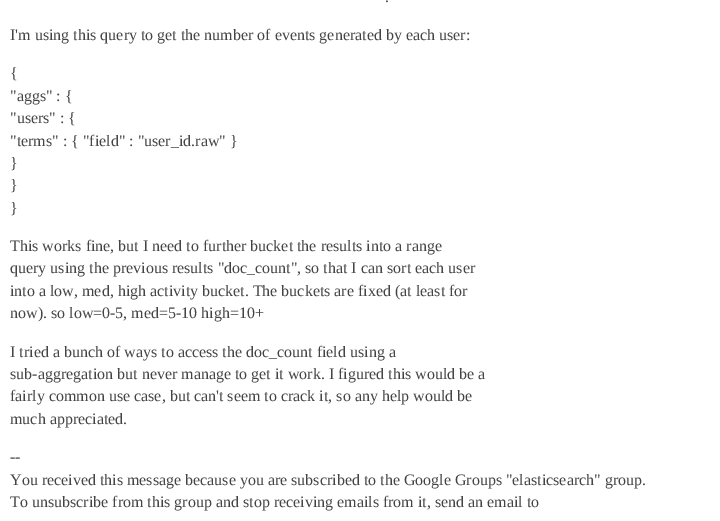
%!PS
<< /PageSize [720 521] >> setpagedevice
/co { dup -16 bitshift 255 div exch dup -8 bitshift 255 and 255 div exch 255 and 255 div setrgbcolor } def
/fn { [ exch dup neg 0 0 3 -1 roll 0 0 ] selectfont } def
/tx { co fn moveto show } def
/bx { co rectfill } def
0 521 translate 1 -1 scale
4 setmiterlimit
0 0 720 521 16#FFFFFF bx
(.) 385 2 /LiberationSerif-Regular 16 16#444444 tx
(I'm using this query to get the number of events generated by each user:) 10 40 /LiberationSerif-Regular 16 16#444444 tx
({) 10 78 /LiberationSerif-Regular 16 16#444444 tx
("aggs" : {) 10 101 /LiberationSerif-Regular 16 16#444444 tx
("users" : {) 10 123 /LiberationSerif-Regular 16 16#444444 tx
("terms" : { "field" : "user_id.raw" }) 10 146 /LiberationSerif-Regular 16 16#444444 tx
(}) 10 168 /LiberationSerif-Regular 16 16#444444 tx
(}) 10 190 /LiberationSerif-Regular 16 16#444444 tx
(}) 10 213 /LiberationSerif-Regular 16 16#444444 tx
(This works fine, but I need to further bucket the results into a range) 10 251 /LiberationSerif-Regular 16 16#444444 tx
(query using the previous results "doc_count", so that I can sort each user) 10 273 /LiberationSerif-Regular 16 16#444444 tx
(into a low, med, high activity bucket. The buckets are fixed \(at least for) 10 296 /LiberationSerif-Regular 16 16#444444 tx
(now\). so low=0-5, med=5-10 high=10+) 10 318 /LiberationSerif-Regular 16 16#444444 tx
(I tried a bunch of ways to access the doc_count field using a) 10 357 /LiberationSerif-Regular 16 16#444444 tx
(sub-aggregation but never manage to get it work. I figured this would be a) 10 379 /LiberationSerif-Regular 16 16#444444 tx
(fairly common use case, but can't seem to crack it, so any help would be) 10 401 /LiberationSerif-Regular 16 16#444444 tx
(much appreciated.) 10 424 /LiberationSerif-Regular 16 16#444444 tx
(--) 10 462 /LiberationSerif-Regular 16 16#444444 tx
(You received this message because you are subscribed to the Google Groups "elasticsearch" group.) 10 485 /LiberationSerif-Regular 16 16#444444 tx
(To unsubscribe from this group and stop receiving emails from it, send an email to) 10 507 /LiberationSerif-Regular 16 16#444444 tx
showpage
